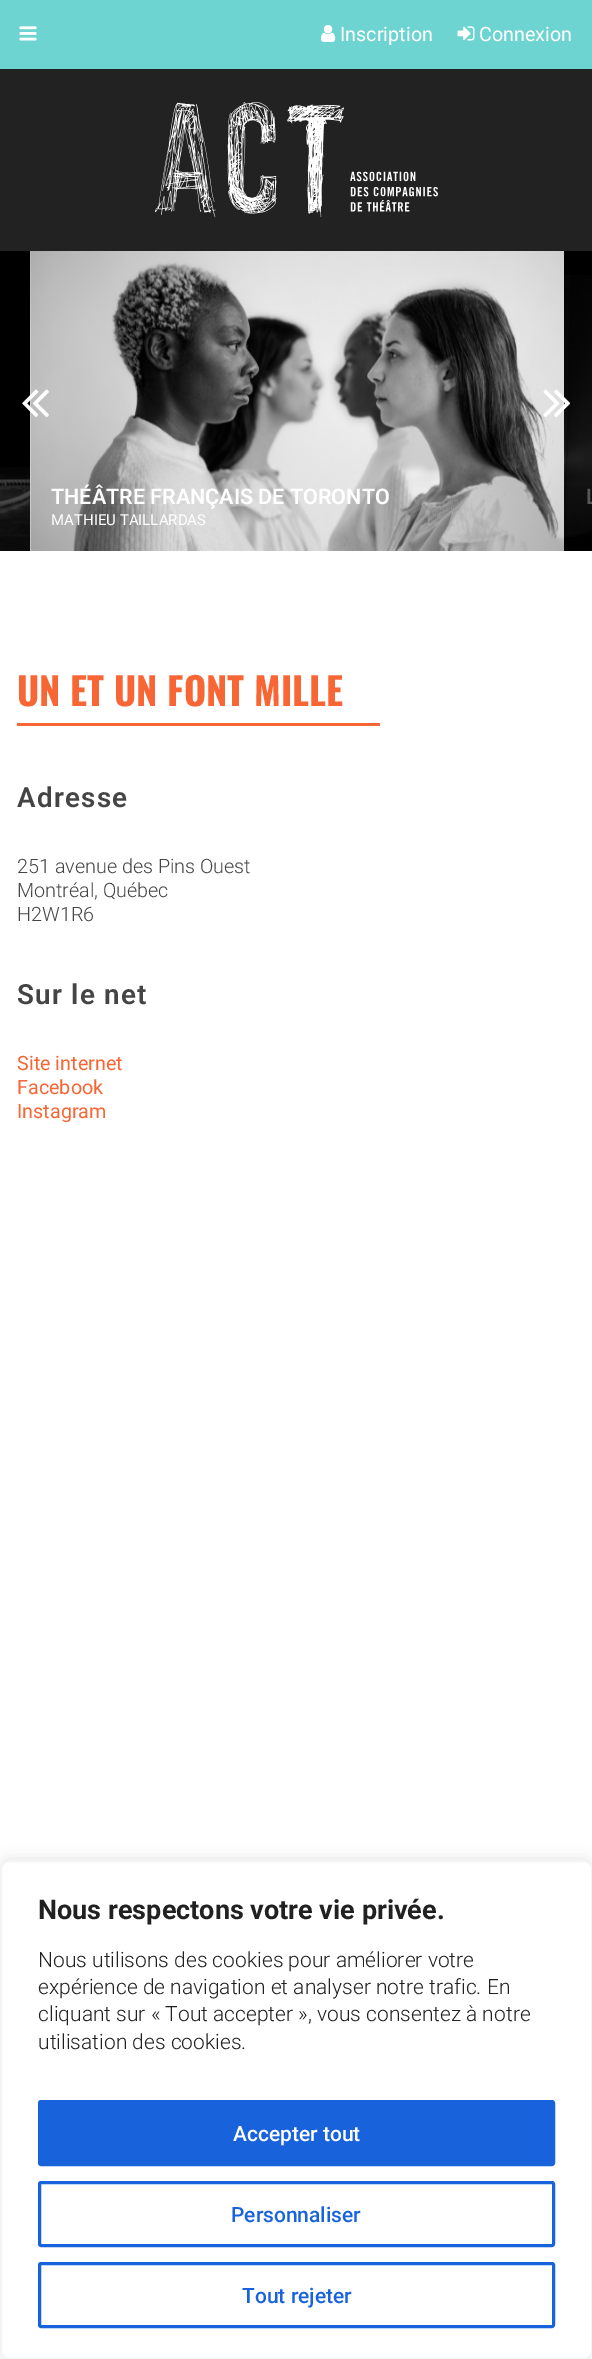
%!PS
<< /PageSize [592 2359] /PageUsesTransparency true >> setpagedevice
/mt/moveto load def
/fl/fill load def
/st/stroke load def
/gs/gsave load def
/gr/grestore load def
/lw/setlinewidth load def
/co { dup -16 bitshift 255 div exch dup -8 bitshift 255 and 255 div exch 255 and 255 div setrgbcolor } def
/fn { [ exch dup neg 0 0 3 -1 roll 0 0 ] selectfont } def
/tx { co fn moveto show } def
/bx { co rectfill } def
/al { dup .setfillconstantalpha .setstrokeconstantalpha } def
/rr { 5 dict begin { /r /h /w /y /x } { exch def } forall
  x r add y moveto x w add y 2 copy h add r arct x w add y h add x 1 index r arct
  x y h add x y r arct x y 2 copy exch w add exch r arct closepath end } def
/sh { 12 dict begin { /a /b /q /h /w /y /x } { exch def } forall gsave /was 0 def
  9 -2 -9 { dup b mul 4 div /e exch def 1 sub .425 mul 2.718 exch exp 1 add a .99 .min exch div /now exch def
    1 1 now sub 1 was sub div sub al /was now def
    w h .min e 2 mul add 0 gt { x e sub y e sub w e 2 mul add h e 2 mul add
      q e add b .6 mul add w h .min 2 div e add .min 0 .max rr fill } if } for grestore end } def
/im { 5 dict begin { /h /w /y /x /name } { exch def } forall
  gsave x y translate w h scale
  w h 8 [w 0 0 h 0 0] name (r) file false 3 colorimage grestore end } def
0 .pushpdf14devicefilter
0 2359 translate 1 -1 scale
4 setmiterlimit
0 0 592 2359 16#FFFFFF bx
0 0 592 69 16#6DD4D1 bx
(media/1.raw) 19 26 18 15 im
(media/2.raw) 321 25 15 17 im
(media/3.raw) 457 26 18 15 im
0 69 592 182 16#222222 bx
(media/4.raw) 155 102 283 116 im
0 251 592 300 16#000000 bx
(media/8.raw) 30 251 534 300 im
(media/5.raw) 22 389 27 28 im
(media/9.raw) 564 275 28 262 im
(media/6.raw) 543 389 27 28 im
(media/7.raw) 0 467 30 84 im
17 723 363 3 16#F86635 bx
16#ACABAB co
0 1859 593 499 9 7.5 .3 sh
16#FFFFFF co
1 1861 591 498 8 rr gs fl gr
16#F4F4F4 co
2 lw
st
16#1863DC co
39.5 2101.5 514 63 1.5 rr gs fl gr
3 lw
st
39.5 2182.5 514 63 1.5 rr st
39.5 2263.5 514 63 1.5 rr st
(Inscription) 340 41 /Roboto-Regular 19.75 16#FFFFFF tx
(Connexion) 479 41 /Roboto-Regular 19.75 16#FFFFFF tx
(THÉÂTRE FRANÇAIS DE TORONTO) 51 504 /Roboto-SemiBold 21.5 16#FFFFFF tx
(MATHIEU TAILLARDAS) 51 525 /Roboto-Regular 15 16#FFFFFF tx
(L) 586 504 /Roboto-SemiBold 21.5 16#575757 tx
(UN ET UN FONT MILLE) 17 706 /Oswald-Bold 38 16#F86635 tx
/Roboto-SemiBold 27.75 fn
16#444444 co
17 807 mt 1.25 0 (Adresse) ashow
(251 avenue des Pins Ouest) 17 873 /Roboto-Light 19.75 16#444444 tx
(Montréal, Québec) 17 897 /Roboto-Light 19.75 16#444444 tx
(H2W1R6) 17 921 /Roboto-Light 19.75 16#444444 tx
/Roboto-SemiBold 27.75 fn
17 1004 mt 1.25 0 (Sur le net) ashow
(Site internet) 17 1070 /Roboto-Regular 19.75 16#F86635 tx
(Facebook) 17 1094 /Roboto-Regular 19.75 16#F86635 tx
(Instagram) 17 1118 /Roboto-Regular 19.75 16#F86635 tx
(Nous respectons votre vie privée.) 38 1919 /Roboto-Bold 27 16#212121 tx
(Nous utilisons des cookies pour améliorer votre) 38 1967 /Roboto-Light 21 16#212121 tx
(expérience de navigation et analyser notre trafic. En) 38 1994 /Roboto-Light 21 16#212121 tx
(cliquant sur « Tout accepter », vous consentez à notre) 38 2021 /Roboto-Light 21 16#212121 tx
(utilisation des cookies.) 38 2049 /Roboto-Light 21 16#212121 tx
(Accepter tout) 233 2141 /Roboto-Medium 21 16#FFFFFF tx
(Personnaliser) 231 2222 /Roboto-Medium 21 16#1863DC tx
(Tout rejeter) 242 2303 /Roboto-Medium 21 16#1863DC tx
.poppdf14devicefilter showpage
